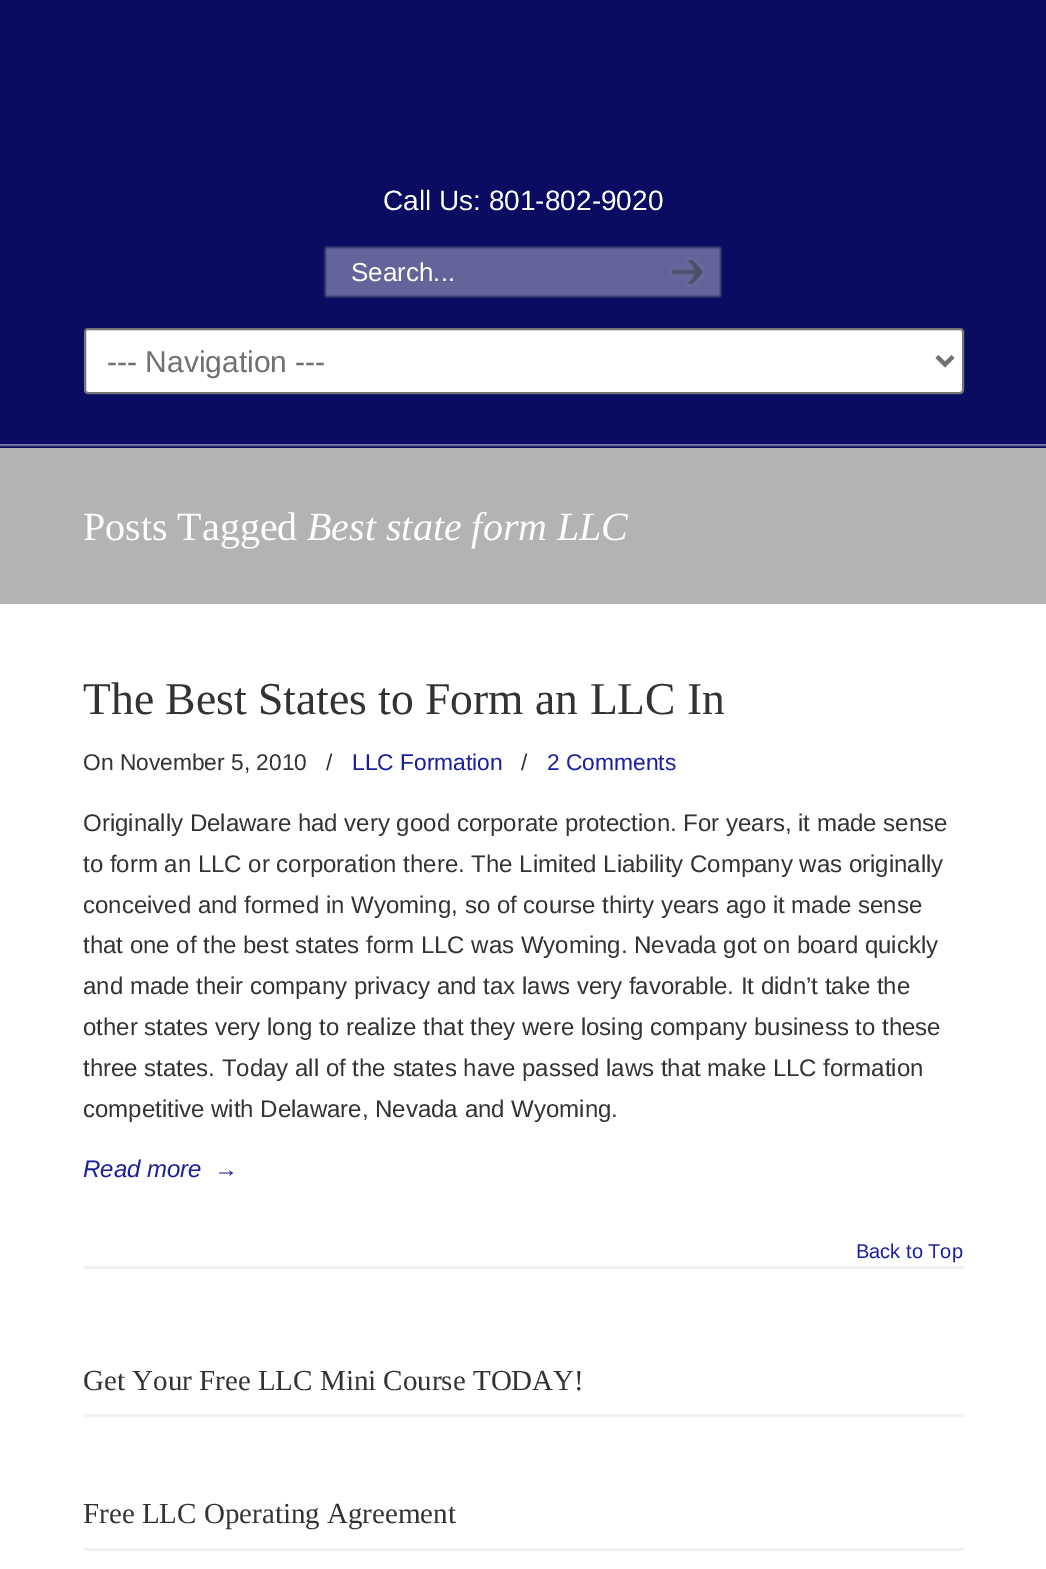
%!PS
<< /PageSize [1046 1569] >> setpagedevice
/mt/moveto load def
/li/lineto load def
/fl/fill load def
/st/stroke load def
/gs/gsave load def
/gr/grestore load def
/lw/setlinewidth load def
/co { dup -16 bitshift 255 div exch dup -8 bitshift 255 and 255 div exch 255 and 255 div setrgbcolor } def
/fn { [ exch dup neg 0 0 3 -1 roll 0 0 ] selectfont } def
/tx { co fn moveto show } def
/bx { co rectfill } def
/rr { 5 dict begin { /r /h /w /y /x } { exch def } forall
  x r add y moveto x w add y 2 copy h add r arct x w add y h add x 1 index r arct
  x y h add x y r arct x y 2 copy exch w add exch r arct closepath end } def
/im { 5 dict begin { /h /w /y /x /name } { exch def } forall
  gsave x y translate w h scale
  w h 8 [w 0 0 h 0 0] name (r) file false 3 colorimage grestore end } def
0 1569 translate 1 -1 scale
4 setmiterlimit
0 0 1046 1569 16#090C61 bx
(media/1.raw) 324 246 318 52 im
(media/2.raw) 642 246 80 52 im
(media/3.raw) 0 444 1046 4 im
16#FFFFFF co
85 329 878 64 3 rr gs fl gr
16#767676 co
2 lw
st
16#717171 co
4 lw
937 356.5 mt 945 364.5 li 953 356.5 li st
0 448 1046 156 16#B3B3B3 bx
0 604 1046 965 16#FFFFFF bx
84 1266 880 3 16#F1F1F1 bx
84 1414 880 3 16#F1F1F1 bx
84 1548 880 3 16#F1F1F1 bx
(Call Us: 801-802-9020) 383 210 /LiberationSans-Regular 28 16#FFFFFF tx
(Search...) 351 281 /LiberationSans-Regular 26 16#FFFFFF tx
(--- Navigation ---) 107 372 /LiberationSans-Regular 30 16#717171 tx
(Posts Tagged) 83 540 /LiberationSerif-Regular 40 16#FFFFFF tx
(Best state form LLC) 307 540 /LiberationSerif-Italic 40 16#FFFFFF tx
(The Best States to Form an LLC In) 83 714 /LiberationSerif-Regular 45.6 16#333333 tx
(On November 5, 2010) 83 770 /LiberationSans-Regular 22.75 16#333333 tx
(/) 326 770 /LiberationSans-Regular 22.75 16#333333 tx
(LLC Formation) 352 770 /LiberationSans-Regular 22.75 16#1A1F9D tx
(/) 521 770 /LiberationSans-Regular 22.75 16#333333 tx
(2 Comments) 547 770 /LiberationSans-Regular 22.75 16#1A1F9D tx
(Originally Delaware had very good corporate protection. For years, it made sense) 83 831 /LiberationSans-Regular 24 16#333333 tx
(to form an LLC or corporation there. The Limited Liability Company was originally) 83 872 /LiberationSans-Regular 24 16#333333 tx
(conceived and formed in Wyoming, so of course thirty years ago it made sense) 83 913 /LiberationSans-Regular 24 16#333333 tx
(that one of the best states form LLC was Wyoming. Nevada got on board quickly) 83 953 /LiberationSans-Regular 24 16#333333 tx
(and made their company privacy and tax laws very favorable. It didn’t take the) 83 994 /LiberationSans-Regular 24 16#333333 tx
(other states very long to realize that they were losing company business to these) 83 1035 /LiberationSans-Regular 24 16#333333 tx
(three states. Today all of the states have passed laws that make LLC formation) 83 1076 /LiberationSans-Regular 24 16#333333 tx
(competitive with Delaware, Nevada and Wyoming.) 83 1117 /LiberationSans-Regular 24 16#333333 tx
(Read more) 83 1177 /LiberationSans-Italic 24 16#1A1F9D tx
(→) 214 1177 /LiberationSans-Regular 24 16#1A1F9D tx
(Back to Top) 856 1258 /LiberationSans-Regular 20 16#1A1F9D tx
(Get Your Free LLC Mini Course TODAY!) 83 1390 /LiberationSerif-Regular 29 16#333333 tx
(Free LLC Operating Agreement) 83 1523 /LiberationSerif-Regular 29 16#333333 tx
showpage
